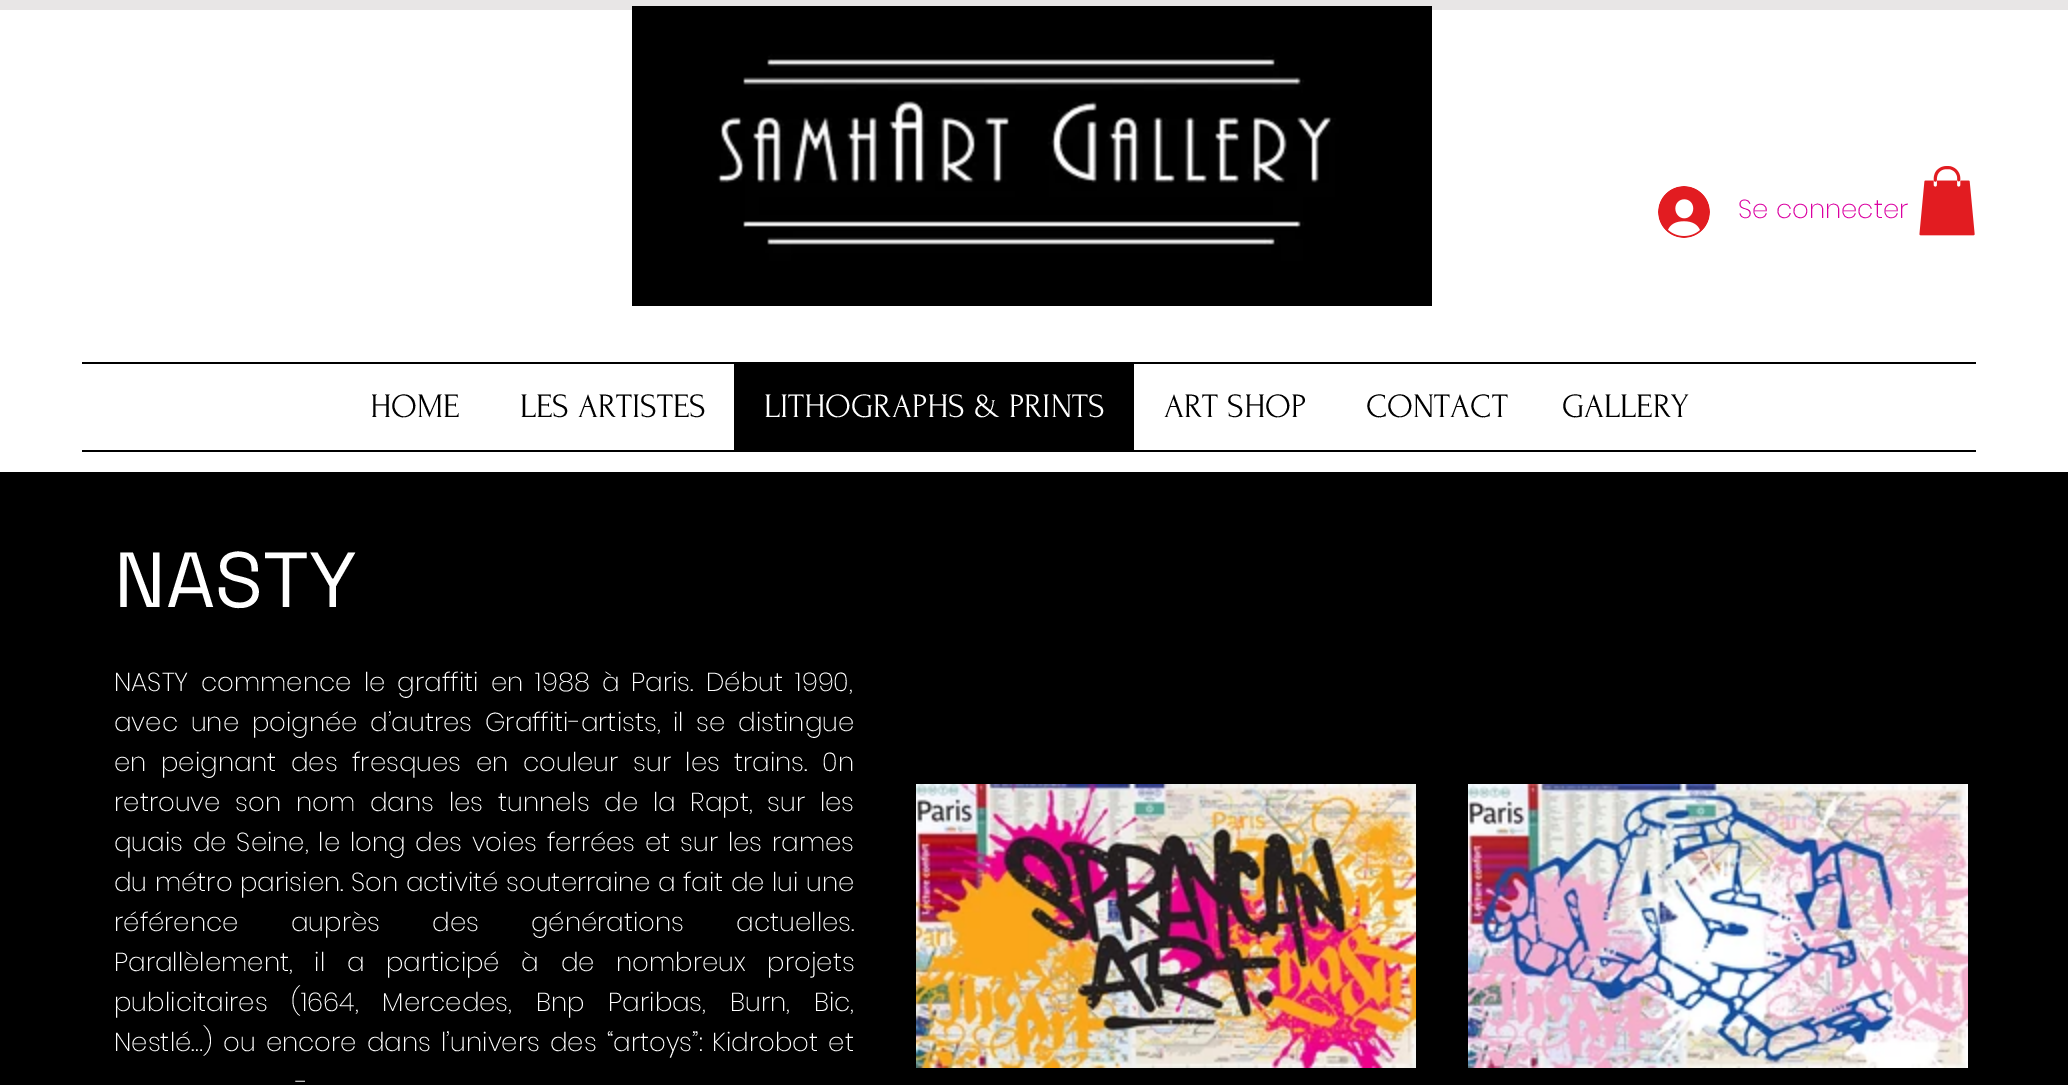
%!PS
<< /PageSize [2068 1085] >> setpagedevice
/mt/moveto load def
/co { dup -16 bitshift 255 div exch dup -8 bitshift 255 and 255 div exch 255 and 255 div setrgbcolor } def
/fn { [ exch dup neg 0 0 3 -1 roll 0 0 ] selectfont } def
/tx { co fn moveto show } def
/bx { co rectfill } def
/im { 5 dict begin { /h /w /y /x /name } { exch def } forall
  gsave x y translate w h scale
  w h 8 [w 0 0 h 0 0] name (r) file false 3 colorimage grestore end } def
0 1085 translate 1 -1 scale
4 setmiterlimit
0 0 2068 1085 16#000000 bx
0 10 2068 462 16#FFFFFF bx
0 0 2068 10 16#E8E6E6 bx
(media/1.raw) 632 6 800 300 im
(media/2.raw) 1658 186 52 52 im
(media/3.raw) 1919 166 56 70 im
82 362 1894 2 16#000000 bx
82 450 1894 2 16#000000 bx
734 364 400 86 16#000000 bx
(media/4.raw) 916 784 500 284 im
(media/5.raw) 1468 784 500 284 im
(Se connecter) 1738 218 /Poppins-ExtraLight 26 16#DB00A1 tx
(HOME) 370 417 /Forum-Regular 34 16#000000 tx
(LES ARTISTES) 520 417 /Forum-Regular 34 16#000000 tx
(LITHOGRAPHS & PRINTS) 764 417 /Forum-Regular 34 16#FFFFFF tx
(ART SHOP) 1164 417 /Forum-Regular 34 16#000000 tx
(CONTACT) 1366 417 /Forum-Regular 34 16#000000 tx
(GALLERY) 1562 417 /Forum-Regular 34 16#000000 tx
(NASTY) 114 607 /SpaceGrotesk-Regular 78 16#FFFFFF tx
/Poppins-ExtraLight 26 fn
114 691 mt 5 0 32 (NASTY commence le graffiti en 1988 à Paris. Début 1990,) widthshow
114 731 mt 5.5 0 32 (avec une poignée d’autres Graffiti-artists, il se distingue) widthshow
114 771 mt 7.25 0 32 (en peignant des fresques en couleur sur les trains. 0n) widthshow
114 811 mt 7.5 0 32 (retrouve son nom dans les tunnels de la Rapt, sur les) widthshow
114 851 mt 2.6 0 32 (quais de Seine, le long des voies ferrées et sur les rames) widthshow
114 891 mt .25 0 32 (du métro parisien. Son activité souterraine a fait de lui une) widthshow
114 931 mt 45 0 32 (référence auprès des générations actuelles.) widthshow
114 971 mt 14.5 0 32 (Parallèlement, il a participé à de nombreux projets) widthshow
114 1011 mt 16.75 0 32 (publicitaires \(1664, Mercedes, Bnp Paribas, Burn, Bic,) widthshow
114 1051 mt 3 0 32 (Nestlé…\) ou encore dans l’univers des “artoys”: Kidrobot et) widthshow
296 1091 mt 5 0 32 (-) widthshow
showpage
